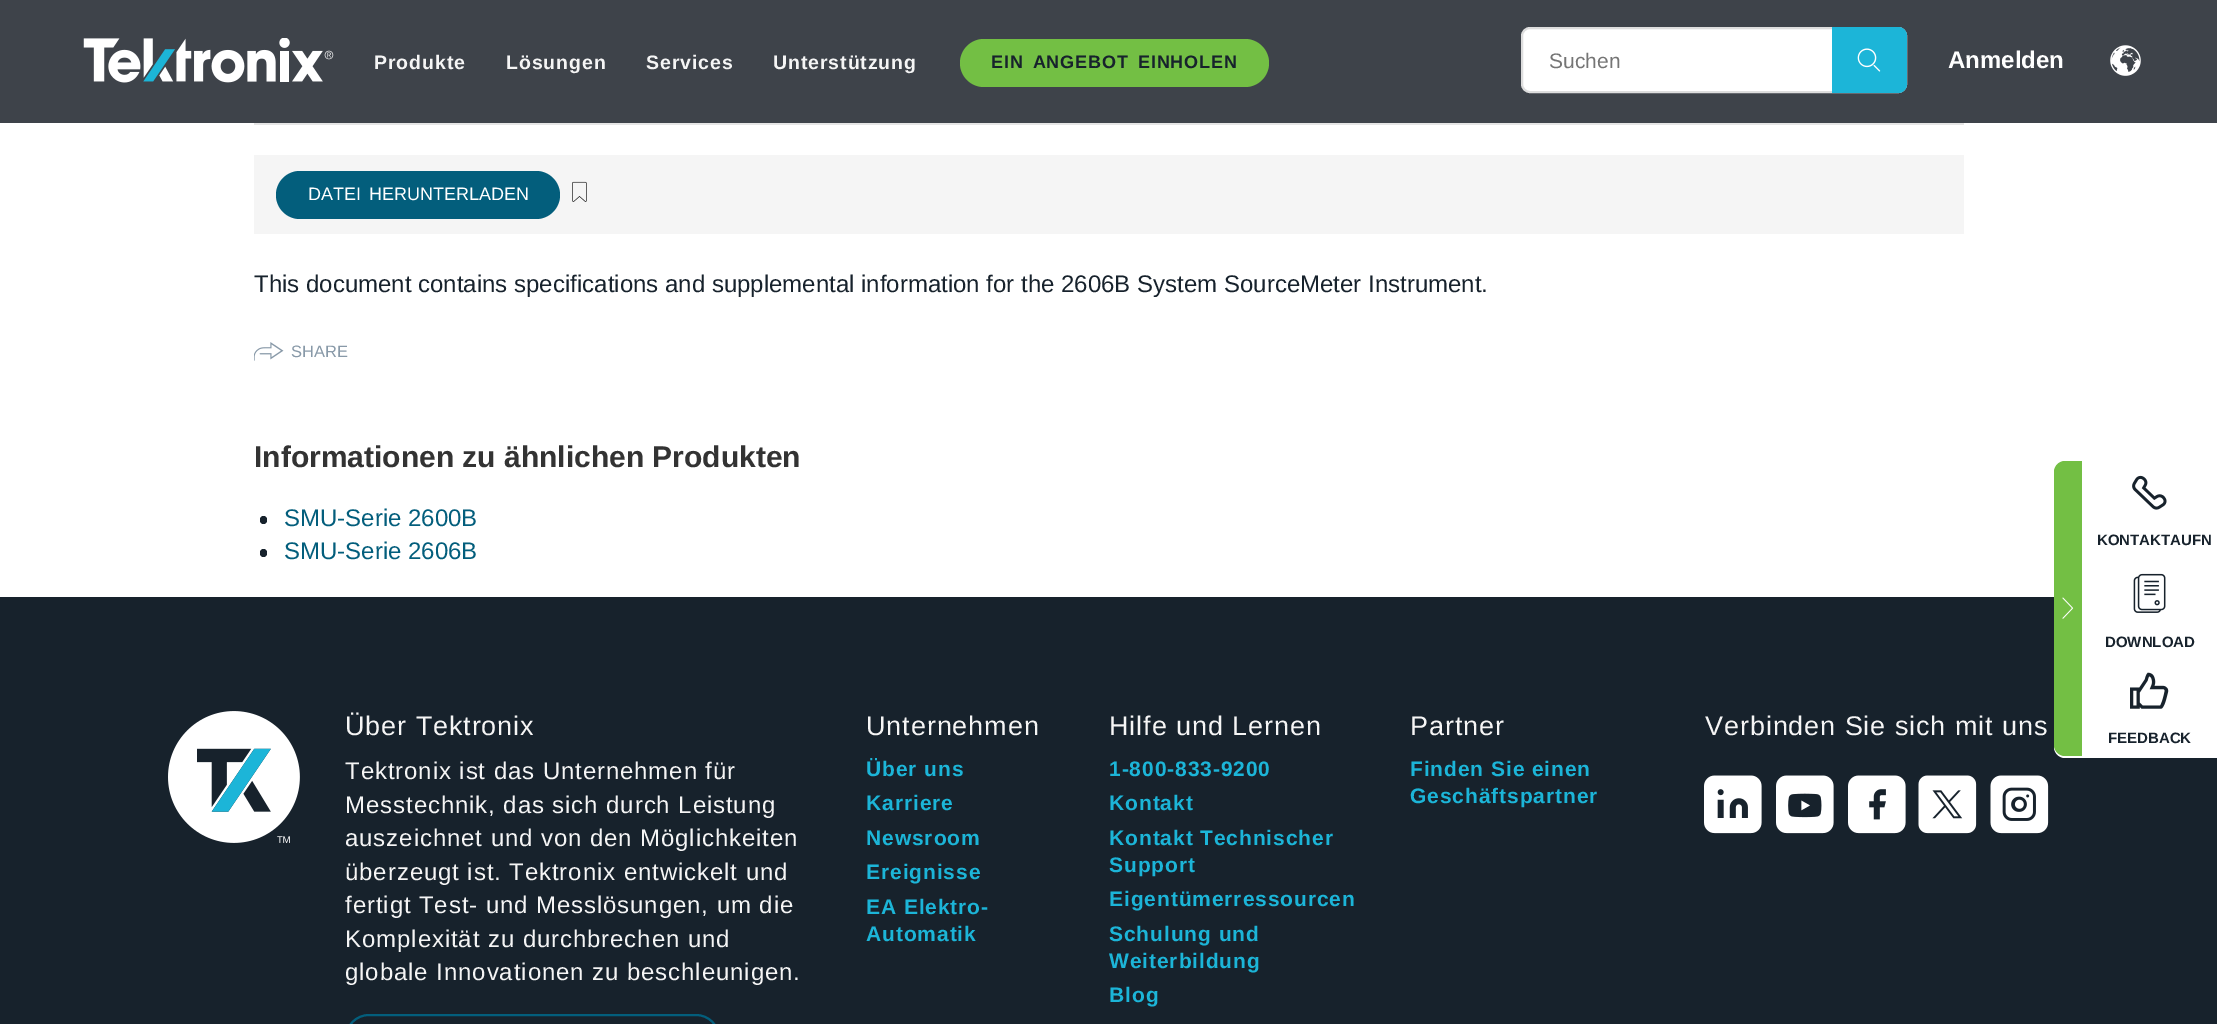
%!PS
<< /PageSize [2217 1024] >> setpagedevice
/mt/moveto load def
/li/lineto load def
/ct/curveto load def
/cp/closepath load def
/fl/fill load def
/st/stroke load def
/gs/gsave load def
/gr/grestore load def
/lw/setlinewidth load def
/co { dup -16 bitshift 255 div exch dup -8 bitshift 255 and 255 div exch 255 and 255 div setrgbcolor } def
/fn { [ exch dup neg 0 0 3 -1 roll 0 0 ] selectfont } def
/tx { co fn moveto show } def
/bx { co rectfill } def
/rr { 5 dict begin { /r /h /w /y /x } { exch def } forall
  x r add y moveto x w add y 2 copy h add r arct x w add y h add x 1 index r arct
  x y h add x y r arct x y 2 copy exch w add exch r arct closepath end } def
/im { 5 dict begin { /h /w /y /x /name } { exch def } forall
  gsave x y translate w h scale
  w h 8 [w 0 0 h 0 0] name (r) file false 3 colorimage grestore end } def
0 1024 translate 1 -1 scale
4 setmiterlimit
0 0 2217 1024 16#FFFFFF bx
0 0 2217 123 16#3E434A bx
(media/1.raw) 83 38 251 45 im
16#73BF44 co
960 39 309 48 24 rr fl
16#FFFFFF co
1522 28 384 64 8 rr gs fl gr
16#DDDDDD co
2 lw
st
16#1CB5D8 co
1832 27 mt 1898 27 li 1903 27 1907 31 1907 36 ct 1907 84 li 1907 89 1903 93 1898 93 ct 1832 93 li cp fl
(media/2.raw) 1857 48 24 24 im
(media/3.raw) 2110 45 31 31 im
254 123 1710 2 16#E5E5E5 bx
254 155 1710 79 16#F5F5F5 bx
16#035E7C co
276 171 284 48 24 rr fl
(media/4.raw) 572 181 15 21 im
(media/5.raw) 254 342 30 19 im
16#17222C co
260 516 7 8 3.5 rr fl
260 549 7 8 3.5 rr fl
0 597 2217 427 16#17222C bx
16#FFFFFF co
2065 461 mt 2217 461 li 2217 758 li 2065 758 li 2059 758 2054 753 2054 747 ct 2054 472 li 2054 466 2059 461 2065 461 ct cp fl
16#73BF44 co
2065 461 mt 2082 461 li 2082 756 li 2065 756 li 2059 756 2054 751 2054 745 ct 2054 472 li 2054 466 2059 461 2065 461 ct cp fl
(media/6.raw) 2062 597 12 22 im
(media/7.raw) 2132 475 35 35 im
(media/8.raw) 2133 573 33 40 im
(media/9.raw) 2130 672 39 37 im
(media/10.raw) 168 711 132 132 im
16#035E7C co
346 1015 373 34 23 rr st
(media/11.raw) 1704 775 58 59 im
(media/12.raw) 1776 775 58 59 im
(media/13.raw) 1848 775 58 59 im
(media/14.raw) 1918 775 59 59 im
(media/15.raw) 1990 775 59 59 im
/LiberationSans-Bold 19.5 fn
16#F5F5F5 co
374 69 mt .9 0 (Produkte) ashow
506 69 mt .9 0 (Lösungen) ashow
646 69 mt .9 0 (Services) ashow
773 69 mt .9 0 (Unterstützung) ashow
/LiberationSans-Bold 18 fn
16#17222C co
991 68 mt 3 0 32 .9 0 (EIN ANGEBOT EINHOLEN) awidthshow
(Suchen) 1549 68 /LiberationSans-Regular 21 16#757575 tx
(Anmelden) 1948 68 /LiberationSans-Bold 24 16#FFFFFF tx
/LiberationSans-Regular 18 fn
308 200 mt 3 0 32 (DATEI HERUNTERLADEN) widthshow
(This document contains specifications and supplemental information for the 2606B System SourceMeter Instrument.) 254 292 /LiberationSans-Regular 24 16#17222C tx
(SHARE) 291 357 /LiberationSans-Regular 16.5 16#8899A8 tx
(Informationen zu ähnlichen Produkten) 254 467 /LiberationSans-Bold 30 16#333333 tx
(SMU-Serie 2600B) 284 526 /LiberationSans-Regular 24 16#035E7C tx
(SMU-Serie 2606B) 284 559 /LiberationSans-Regular 24 16#035E7C tx
(KONTAKTAUFN) 2097 545 /LiberationSans-Bold 15 16#17222C tx
(DOWNLOAD) 2105 647 /LiberationSans-Bold 15 16#17222C tx
(FEEDBACK) 2108 743 /LiberationSans-Bold 15 16#17222C tx
/LiberationSans-Regular 27 fn
16#F5F5F5 co
345 735 mt .9 0 (Über Tektronix) ashow
/LiberationSans-Regular 24 fn
345 779 mt .9 0 (Tektronix ist das Unternehmen für) ashow
345 813 mt .9 0 (Messtechnik, das sich durch Leistung) ashow
345 846 mt .9 0 (auszeichnet und von den Möglichkeiten) ashow
345 880 mt .9 0 (überzeugt ist. Tektronix entwickelt und) ashow
345 913 mt .9 0 (fertigt Test- und Messlösungen, um die) ashow
345 947 mt .9 0 (Komplexität zu durchbrechen und) ashow
345 980 mt .9 0 (globale Innovationen zu beschleunigen.) ashow
/LiberationSans-Regular 27 fn
866 735 mt .9 0 (Unternehmen) ashow
/LiberationSans-Bold 21 fn
16#1CB5D8 co
866 776 mt .9 0 (Über uns) ashow
866 810 mt .9 0 (Karriere) ashow
866 845 mt .9 0 (Newsroom) ashow
866 879 mt .9 0 (Ereignisse) ashow
866 914 mt .9 0 (EA Elektro-) ashow
866 941 mt .9 0 (Automatik) ashow
/LiberationSans-Regular 27 fn
16#F5F5F5 co
1109 735 mt .9 0 (Hilfe und Lernen) ashow
/LiberationSans-Bold 21 fn
16#1CB5D8 co
1109 776 mt .9 0 (1-800-833-9200) ashow
1109 810 mt .9 0 (Kontakt) ashow
1109 845 mt .9 0 (Kontakt Technischer) ashow
1109 872 mt .9 0 (Support) ashow
1109 906 mt .9 0 (Eigentümerressourcen) ashow
1109 941 mt .9 0 (Schulung und) ashow
1109 968 mt .9 0 (Weiterbildung) ashow
1109 1002 mt .9 0 (Blog) ashow
/LiberationSans-Regular 27 fn
16#F5F5F5 co
1410 735 mt .9 0 (Partner) ashow
/LiberationSans-Bold 21 fn
16#1CB5D8 co
1410 776 mt .9 0 (Finden Sie einen) ashow
1410 803 mt .9 0 (Geschäftspartner) ashow
/LiberationSans-Regular 27 fn
16#F5F5F5 co
1705 735 mt .9 0 (Verbinden Sie sich mit uns) ashow
showpage
